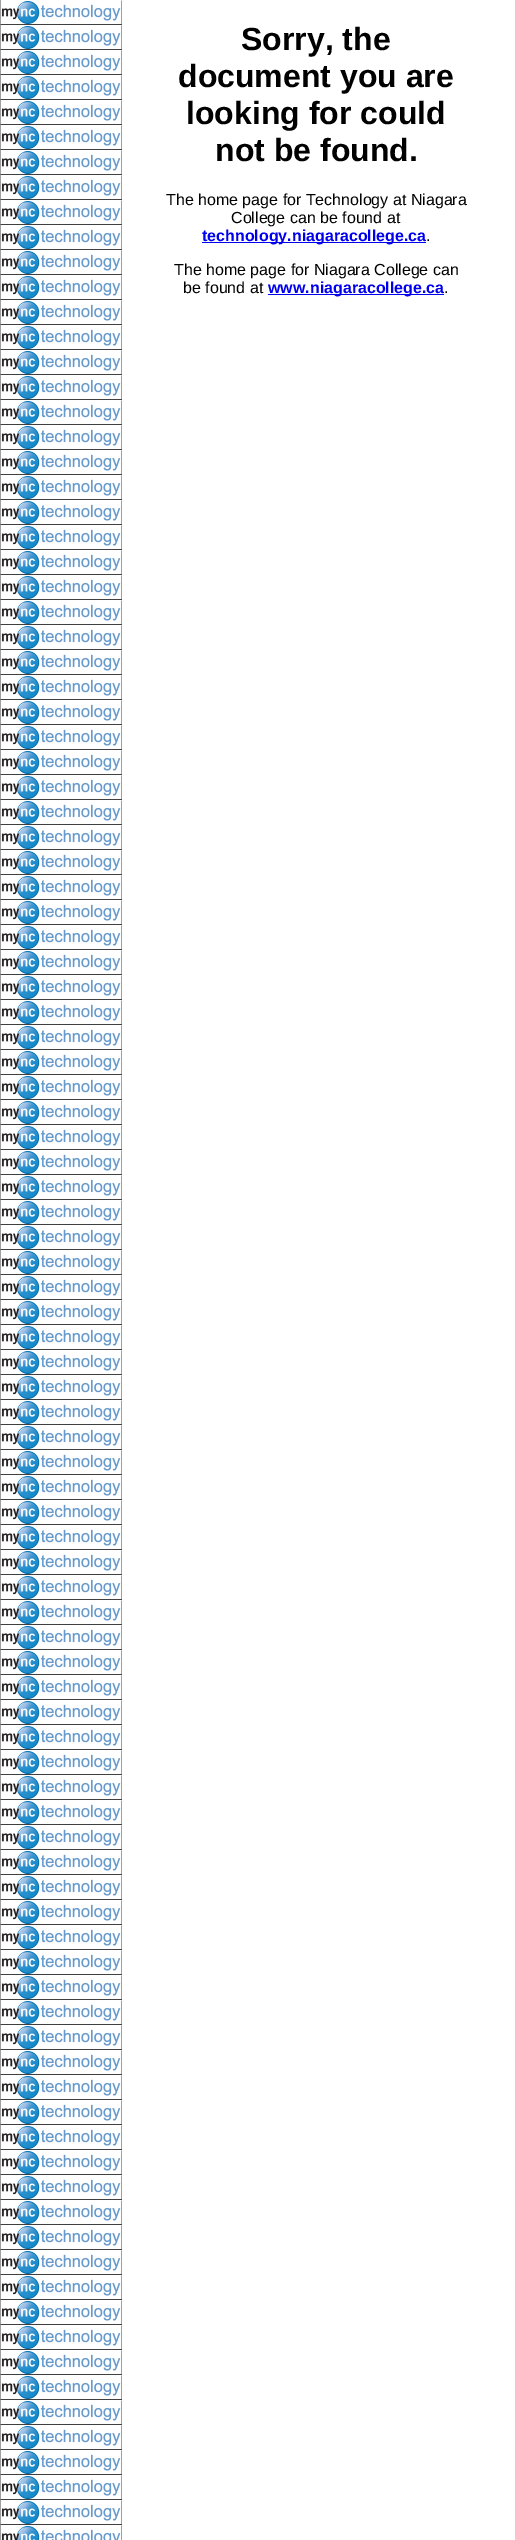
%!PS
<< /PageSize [515 2540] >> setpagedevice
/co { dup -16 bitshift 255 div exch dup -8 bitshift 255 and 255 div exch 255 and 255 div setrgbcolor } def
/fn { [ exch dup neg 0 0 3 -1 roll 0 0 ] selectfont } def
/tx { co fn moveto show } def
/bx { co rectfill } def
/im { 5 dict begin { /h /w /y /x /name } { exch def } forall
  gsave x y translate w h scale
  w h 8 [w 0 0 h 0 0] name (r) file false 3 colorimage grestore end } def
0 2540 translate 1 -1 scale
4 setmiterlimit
0 0 515 2540 16#FFFFFF bx
(media/1.raw) 0 0 122 2540 im
202 242 224 1 16#0000EE bx
268 294 176 1 16#0000EE bx
(Sorry, the) 241 50 /LiberationSans-Bold 32 16#000000 tx
(document you are) 178 87 /LiberationSans-Bold 32 16#000000 tx
(looking for could) 186 124 /LiberationSans-Bold 32 16#000000 tx
(not be found.) 215 161 /LiberationSans-Bold 32 16#000000 tx
(The home page for Technology at Niagara) 166 205 /LiberationSans-Regular 16 16#000000 tx
(College can be found at) 231 223 /LiberationSans-Regular 16 16#000000 tx
(technology.niagaracollege.ca) 202 241 /LiberationSans-Bold 16 16#0000EE tx
(.) 426 241 /LiberationSans-Regular 16 16#000000 tx
(The home page for Niagara College can) 174 275 /LiberationSans-Regular 16 16#000000 tx
(be found at) 183 293 /LiberationSans-Regular 16 16#000000 tx
(www.niagaracollege.ca) 268 293 /LiberationSans-Bold 16 16#0000EE tx
(.) 444 293 /LiberationSans-Regular 16 16#000000 tx
showpage
